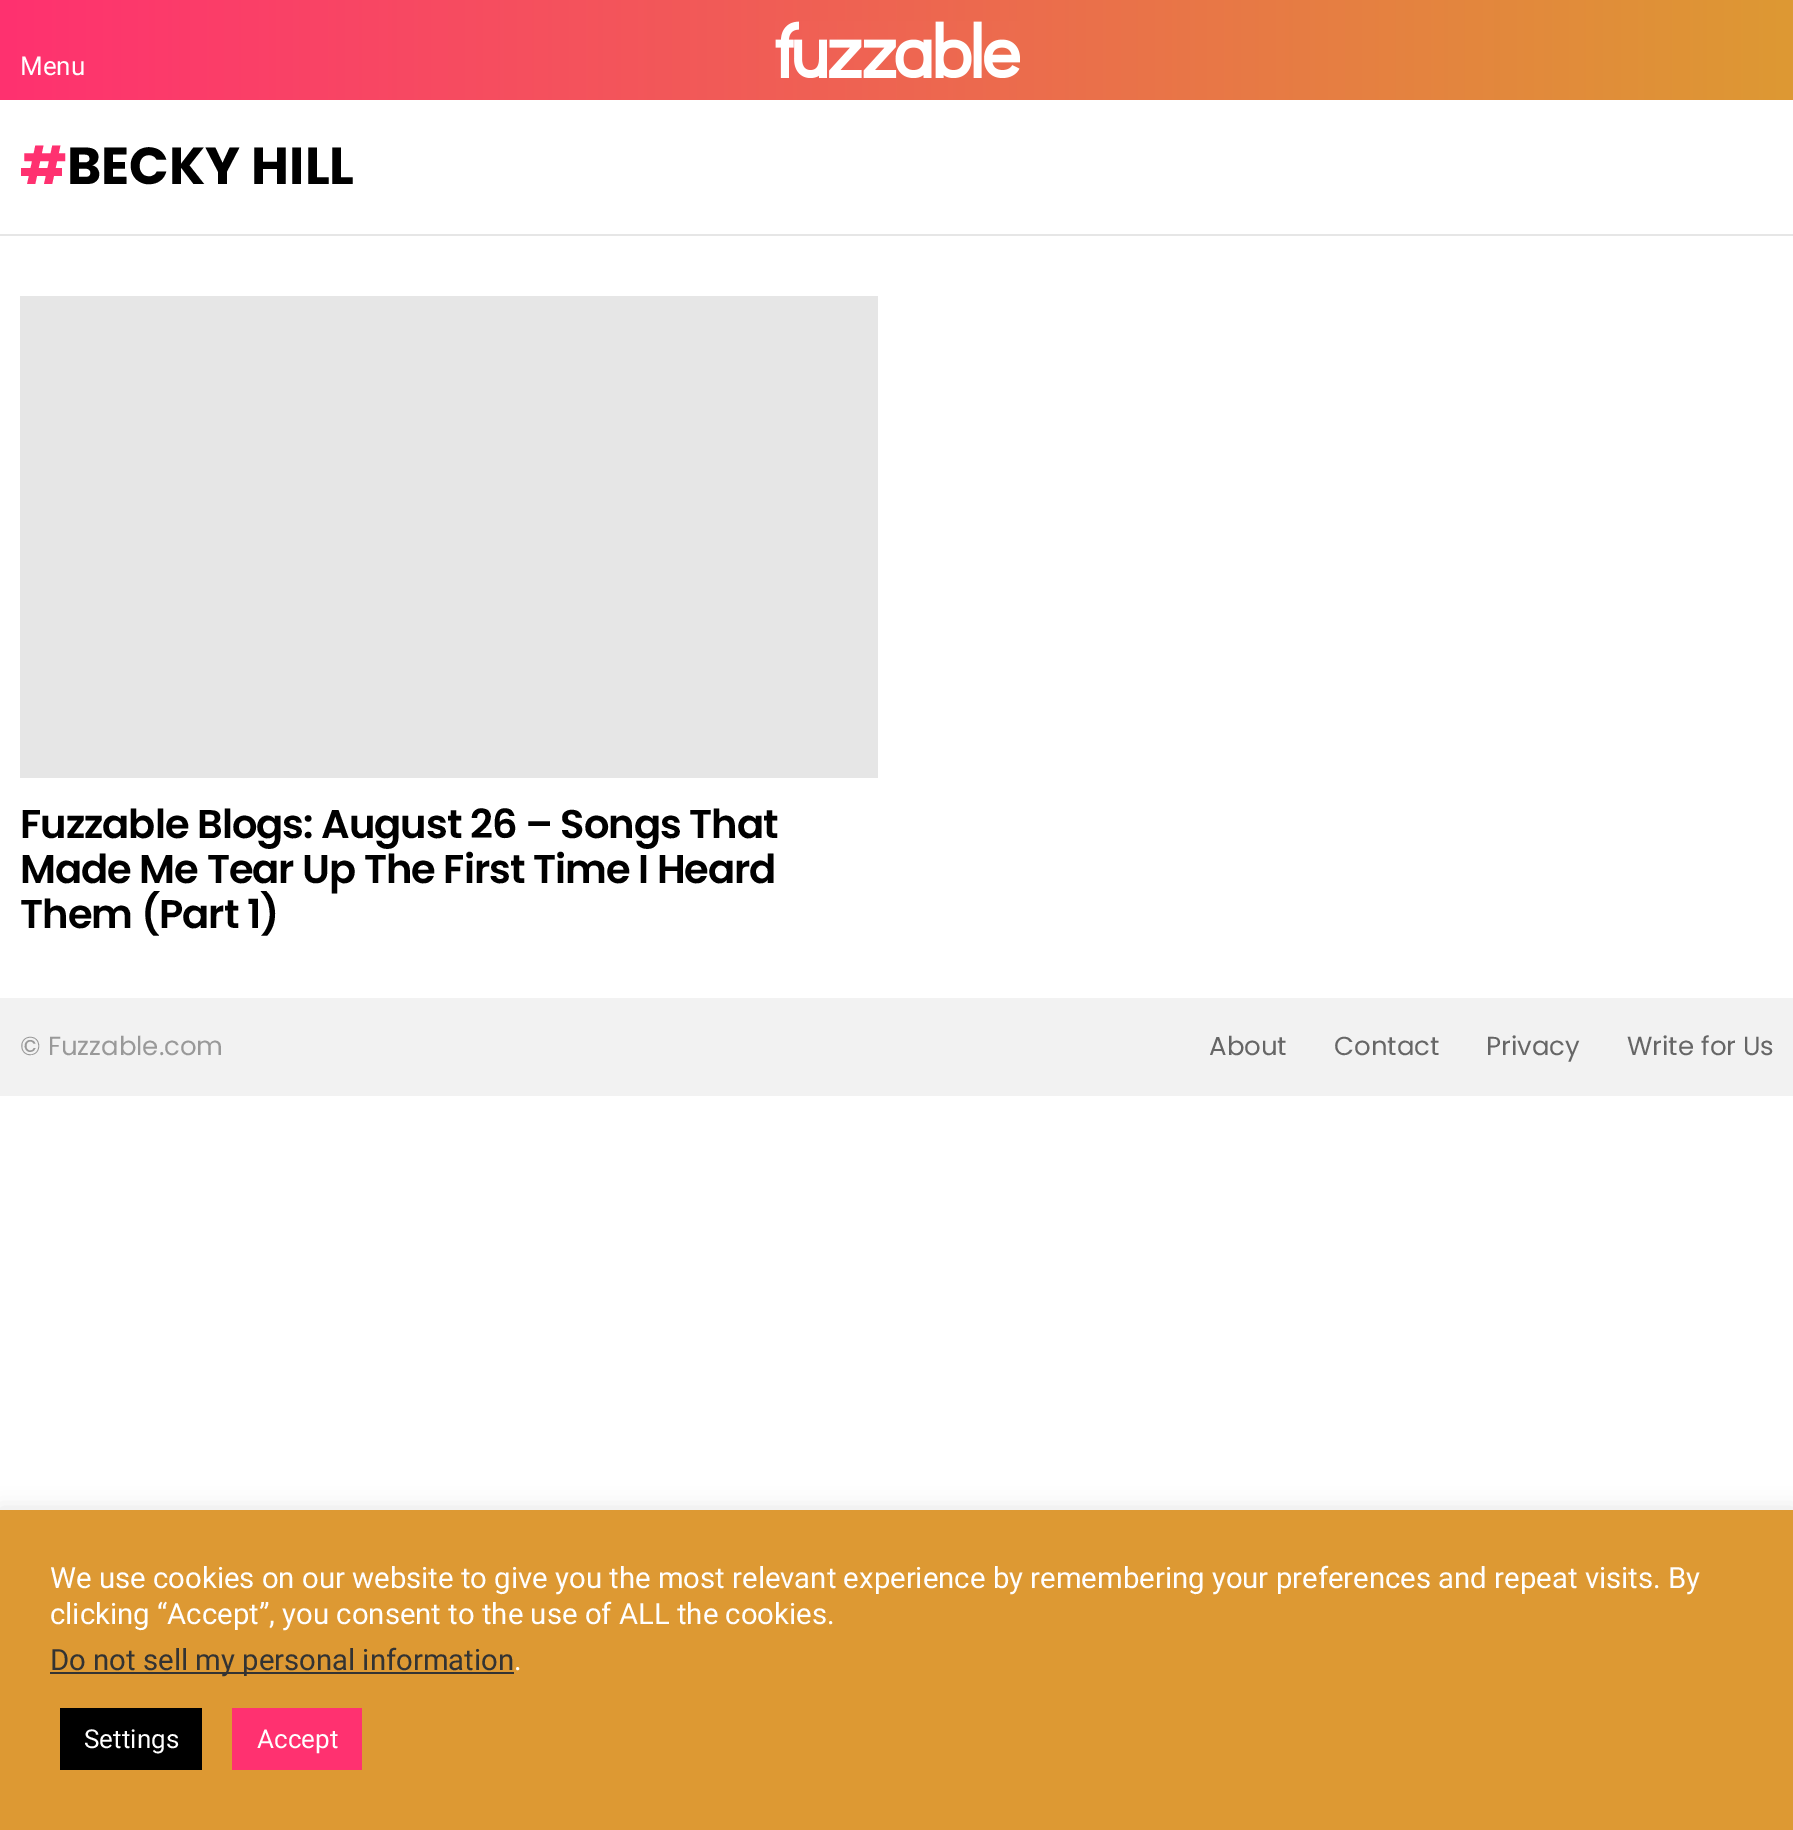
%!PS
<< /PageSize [1793 1830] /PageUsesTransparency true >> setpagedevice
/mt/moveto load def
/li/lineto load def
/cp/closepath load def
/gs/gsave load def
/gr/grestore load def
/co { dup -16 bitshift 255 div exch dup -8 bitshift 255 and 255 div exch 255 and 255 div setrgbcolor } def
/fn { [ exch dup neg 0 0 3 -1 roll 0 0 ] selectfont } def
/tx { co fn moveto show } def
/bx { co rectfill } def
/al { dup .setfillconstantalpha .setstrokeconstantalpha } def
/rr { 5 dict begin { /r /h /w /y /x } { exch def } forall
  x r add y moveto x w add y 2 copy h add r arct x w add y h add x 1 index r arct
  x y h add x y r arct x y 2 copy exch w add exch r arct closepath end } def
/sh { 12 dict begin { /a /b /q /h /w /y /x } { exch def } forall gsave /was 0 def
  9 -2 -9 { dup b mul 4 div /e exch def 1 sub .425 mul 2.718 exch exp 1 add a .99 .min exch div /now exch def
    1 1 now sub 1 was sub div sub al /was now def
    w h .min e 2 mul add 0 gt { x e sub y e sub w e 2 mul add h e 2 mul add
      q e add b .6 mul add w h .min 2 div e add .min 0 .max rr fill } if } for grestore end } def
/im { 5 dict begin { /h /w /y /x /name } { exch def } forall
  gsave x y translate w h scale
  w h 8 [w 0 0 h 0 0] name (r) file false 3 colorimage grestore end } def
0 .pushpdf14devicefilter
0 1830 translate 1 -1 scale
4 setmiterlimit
0 0 1793 1830 16#FFFFFF bx
gs 0 0 mt 1793 0 li 1793 100 li 0 100 li cp clip newpath
<< /ShadingType 2 /ColorSpace /DeviceRGB /Coords [0 50 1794 50] /Extend [true true] /Function << /FunctionType 2 /Domain [0 1] /C0 [1 .192 .439] /C1 [.867 .6 .2] /N 1 >> >> shfill gr
(media/1.raw) 775 21 245 57 im
0 234 1793 2 16#E6E6E6 bx
20 296 858 482 16#E6E6E6 bx
0 998 1793 98 16#F2F2F2 bx
16#ACABAB co
0 1508 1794 320 0 10 .3 sh
0 1510 1793 320 16#DD9933 bx
50 1672 464 2 16#333333 bx
60 1708 142 62 16#000000 bx
232 1708 130 62 16#FF3170 bx
(Menu) 20 75 /Roboto-Regular 26 16#FFFFFF tx
(#) 20 184 /Poppins-Bold 52 16#FF3170 tx
(BECKY HILL) 67 184 /Poppins-Bold 52 16#000000 tx
/Poppins-SemiBold 40 fn
20 838 mt -1 0 (Fuzzable Blogs: August 26 – Songs That) ashow
20 883 mt -1 0 (Made Me Tear Up The First Time I Heard) ashow
20 928 mt -1 0 (Them \(Part 1\)) ashow
(© Fuzzable.com) 20 1055 /Poppins-Regular 26 16#999999 tx
(About) 1209 1055 /Poppins-Regular 26 16#666666 tx
(Contact) 1334 1055 /Poppins-Regular 26 16#666666 tx
(Privacy) 1486 1055 /Poppins-Regular 26 16#666666 tx
(Write for Us) 1627 1055 /Poppins-Regular 26 16#666666 tx
(We use cookies on our website to give you the most relevant experience by remembering your preferences and repeat visits. By) 50 1588 /Roboto-Regular 29.33 16#FFFFFF tx
(clicking “Accept”, you consent to the use of ALL the cookies.) 50 1624 /Roboto-Regular 29.33 16#FFFFFF tx
(Do not sell my personal information) 50 1670 /Roboto-Regular 29.33 16#333333 tx
(.) 514 1670 /Roboto-Regular 29.33 16#FFFFFF tx
(Settings) 84 1748 /Roboto-Regular 26 16#FFFFFF tx
(Accept) 257 1748 /Roboto-Regular 26 16#FFFFFF tx
.poppdf14devicefilter showpage
